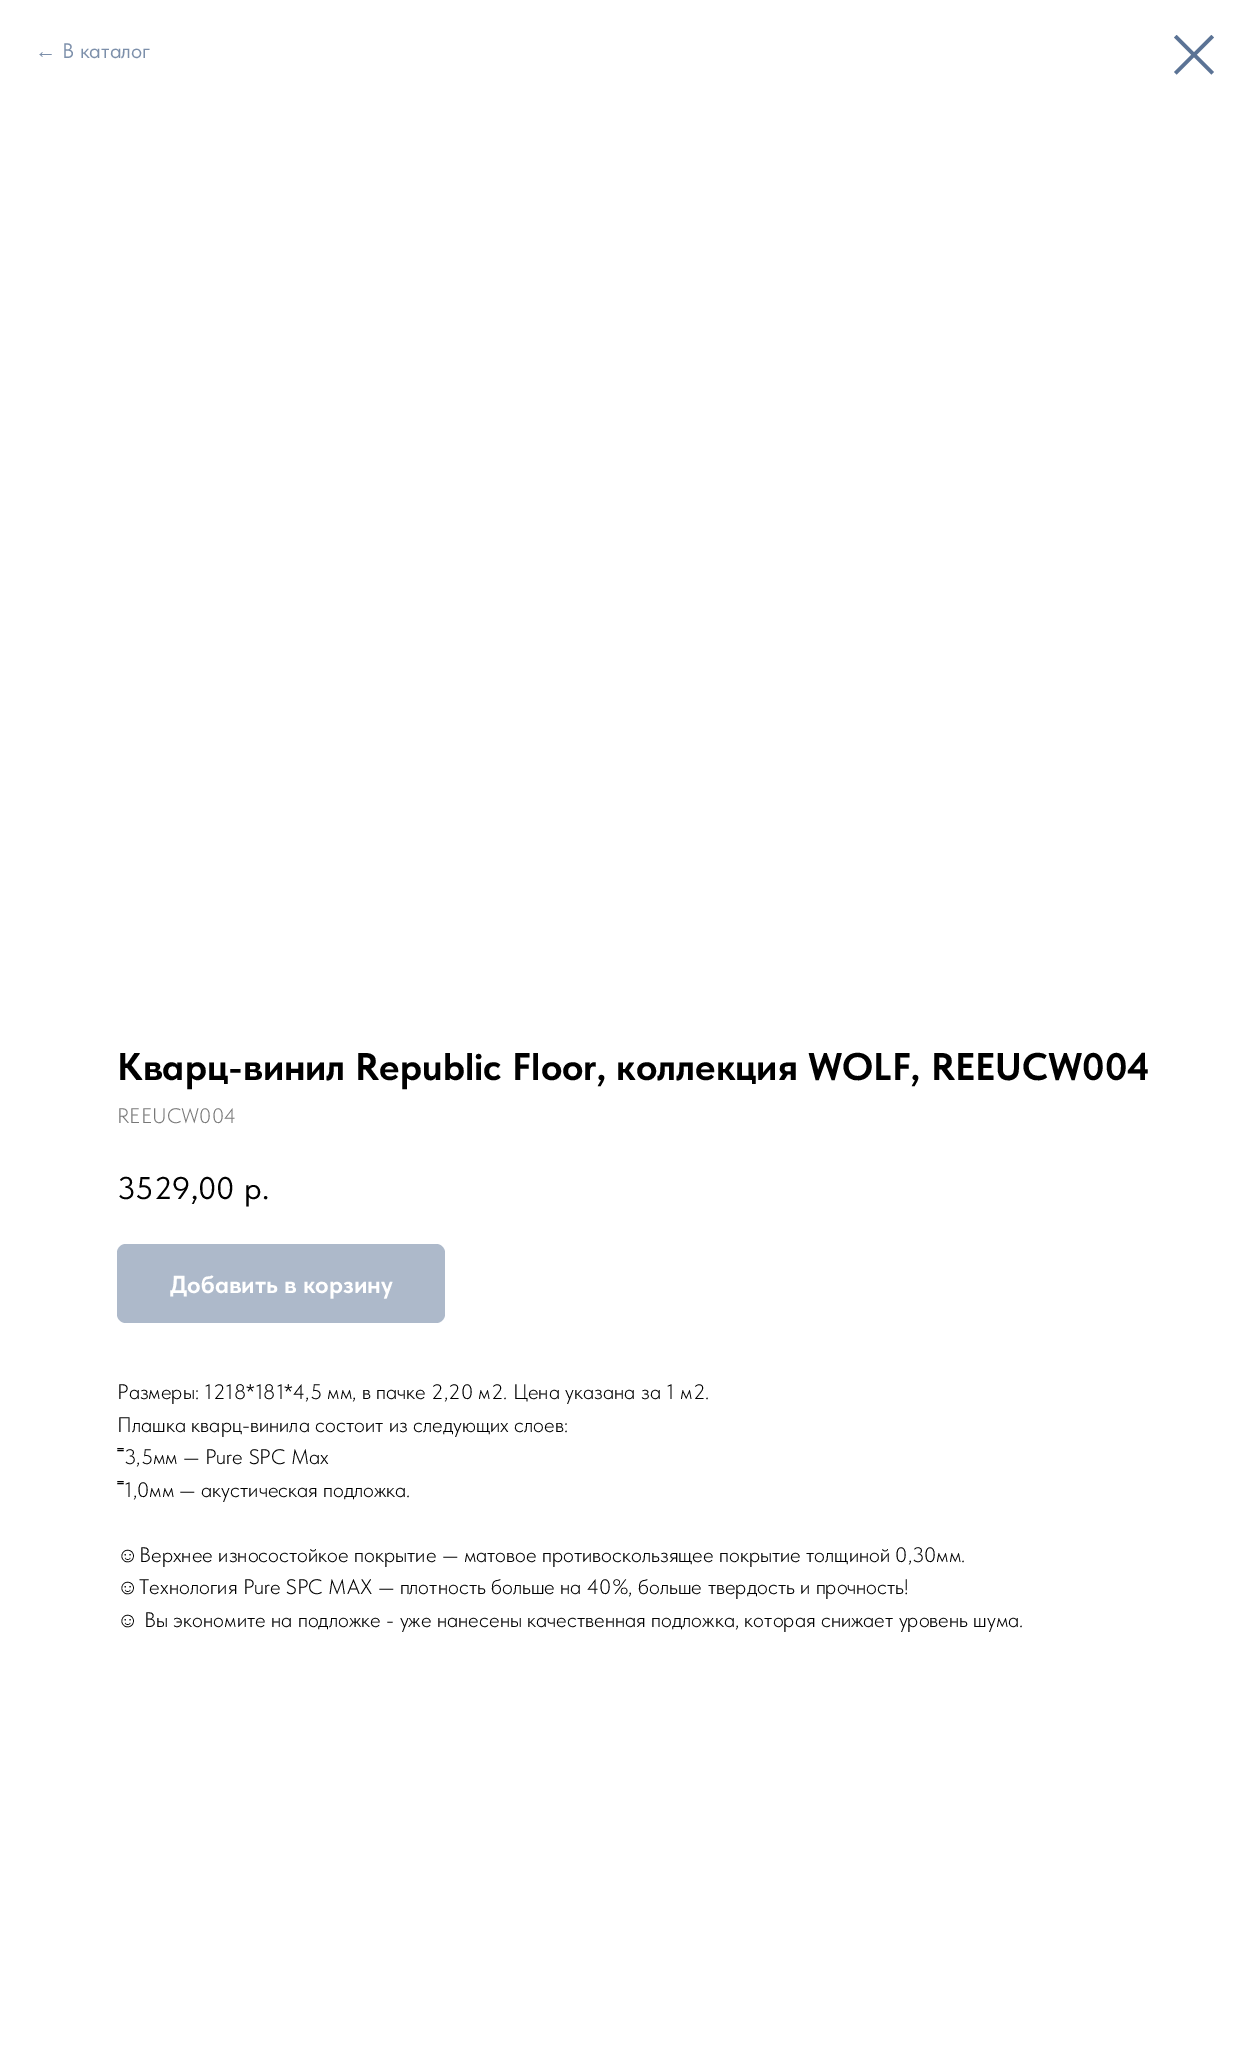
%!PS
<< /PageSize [1249 2048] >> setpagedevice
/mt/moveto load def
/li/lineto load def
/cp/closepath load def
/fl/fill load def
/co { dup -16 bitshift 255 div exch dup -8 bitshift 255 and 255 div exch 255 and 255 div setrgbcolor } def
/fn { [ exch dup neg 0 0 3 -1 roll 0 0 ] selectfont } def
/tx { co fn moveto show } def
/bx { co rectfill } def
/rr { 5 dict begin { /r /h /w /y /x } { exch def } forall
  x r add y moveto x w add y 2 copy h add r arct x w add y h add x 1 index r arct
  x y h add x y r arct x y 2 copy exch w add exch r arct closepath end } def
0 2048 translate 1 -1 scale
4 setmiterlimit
0 0 1249 2048 16#FFFFFF bx
16#5B7395 co
1174 37.5 mt 1176.5 35 li 1214 72 li 1211.5 74.5 li cp eofill
1211.5 35 mt 1214 37.5 li 1176.5 74.5 li 1174 72 li cp eofill
16#ADB9CA co
117 1244 328 79 9 rr fl
(←) 35 58 /LiberationSans-Regular 21 16#7C8FAA tx
(В каталог) 62 58 /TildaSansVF-Regular 21 16#7C8FAA tx
(Кварц-винил Republic Floor, коллекция WOLF, REEUCW004) 117 1080 /TildaSansVF-Bold 38.5 16#000000 tx
(REEUCW004) 117 1123 /TildaSansVF-Light 21 16#777777 tx
(3529,00) 117 1199 /TildaSansVF-Regular 31.5 16#000000 tx
(р.) 244 1199 /TildaSansVF-Regular 31.5 16#000000 tx
(Добавить в корзину) 170 1293 /TildaSansVF-Bold 24.5 16#FFFFFF tx
(Размеры: 1218*181*4,5 мм, в пачке 2,20 м2. Цена указана за 1 м2.) 117 1399 /TildaSansVF-Light 21 16#000000 tx
(Плашка кварц-винила состоит из следующих слоев:) 117 1432 /TildaSansVF-Light 21 16#000000 tx
(˭) 117 1464 /LiberationSans-Regular 21 16#000000 tx
(3,5мм — Pure SPC Max) 124 1464 /TildaSansVF-Light 21 16#000000 tx
(˭) 117 1497 /LiberationSans-Regular 21 16#000000 tx
(1,0мм — акустическая подложка.) 124 1497 /TildaSansVF-Light 21 16#000000 tx
(☺) 117 1562 /LiberationSans-Regular 21 16#000000 tx
(Верхнее износостойкое покрытие — матовое противоскользящее покрытие толщиной 0,30мм.) 139 1562 /TildaSansVF-Light 21 16#000000 tx
(☺) 117 1594 /LiberationSans-Regular 21 16#000000 tx
(Технология Pure SPC MAX — плотность больше на 40%, больше твердость и прочность!) 139 1594 /TildaSansVF-Light 21 16#000000 tx
(☺) 117 1627 /LiberationSans-Regular 21 16#000000 tx
(Вы экономите на подложке - уже нанесены качественная подложка, которая снижает уровень шума.) 144 1627 /TildaSansVF-Light 21 16#000000 tx
showpage
